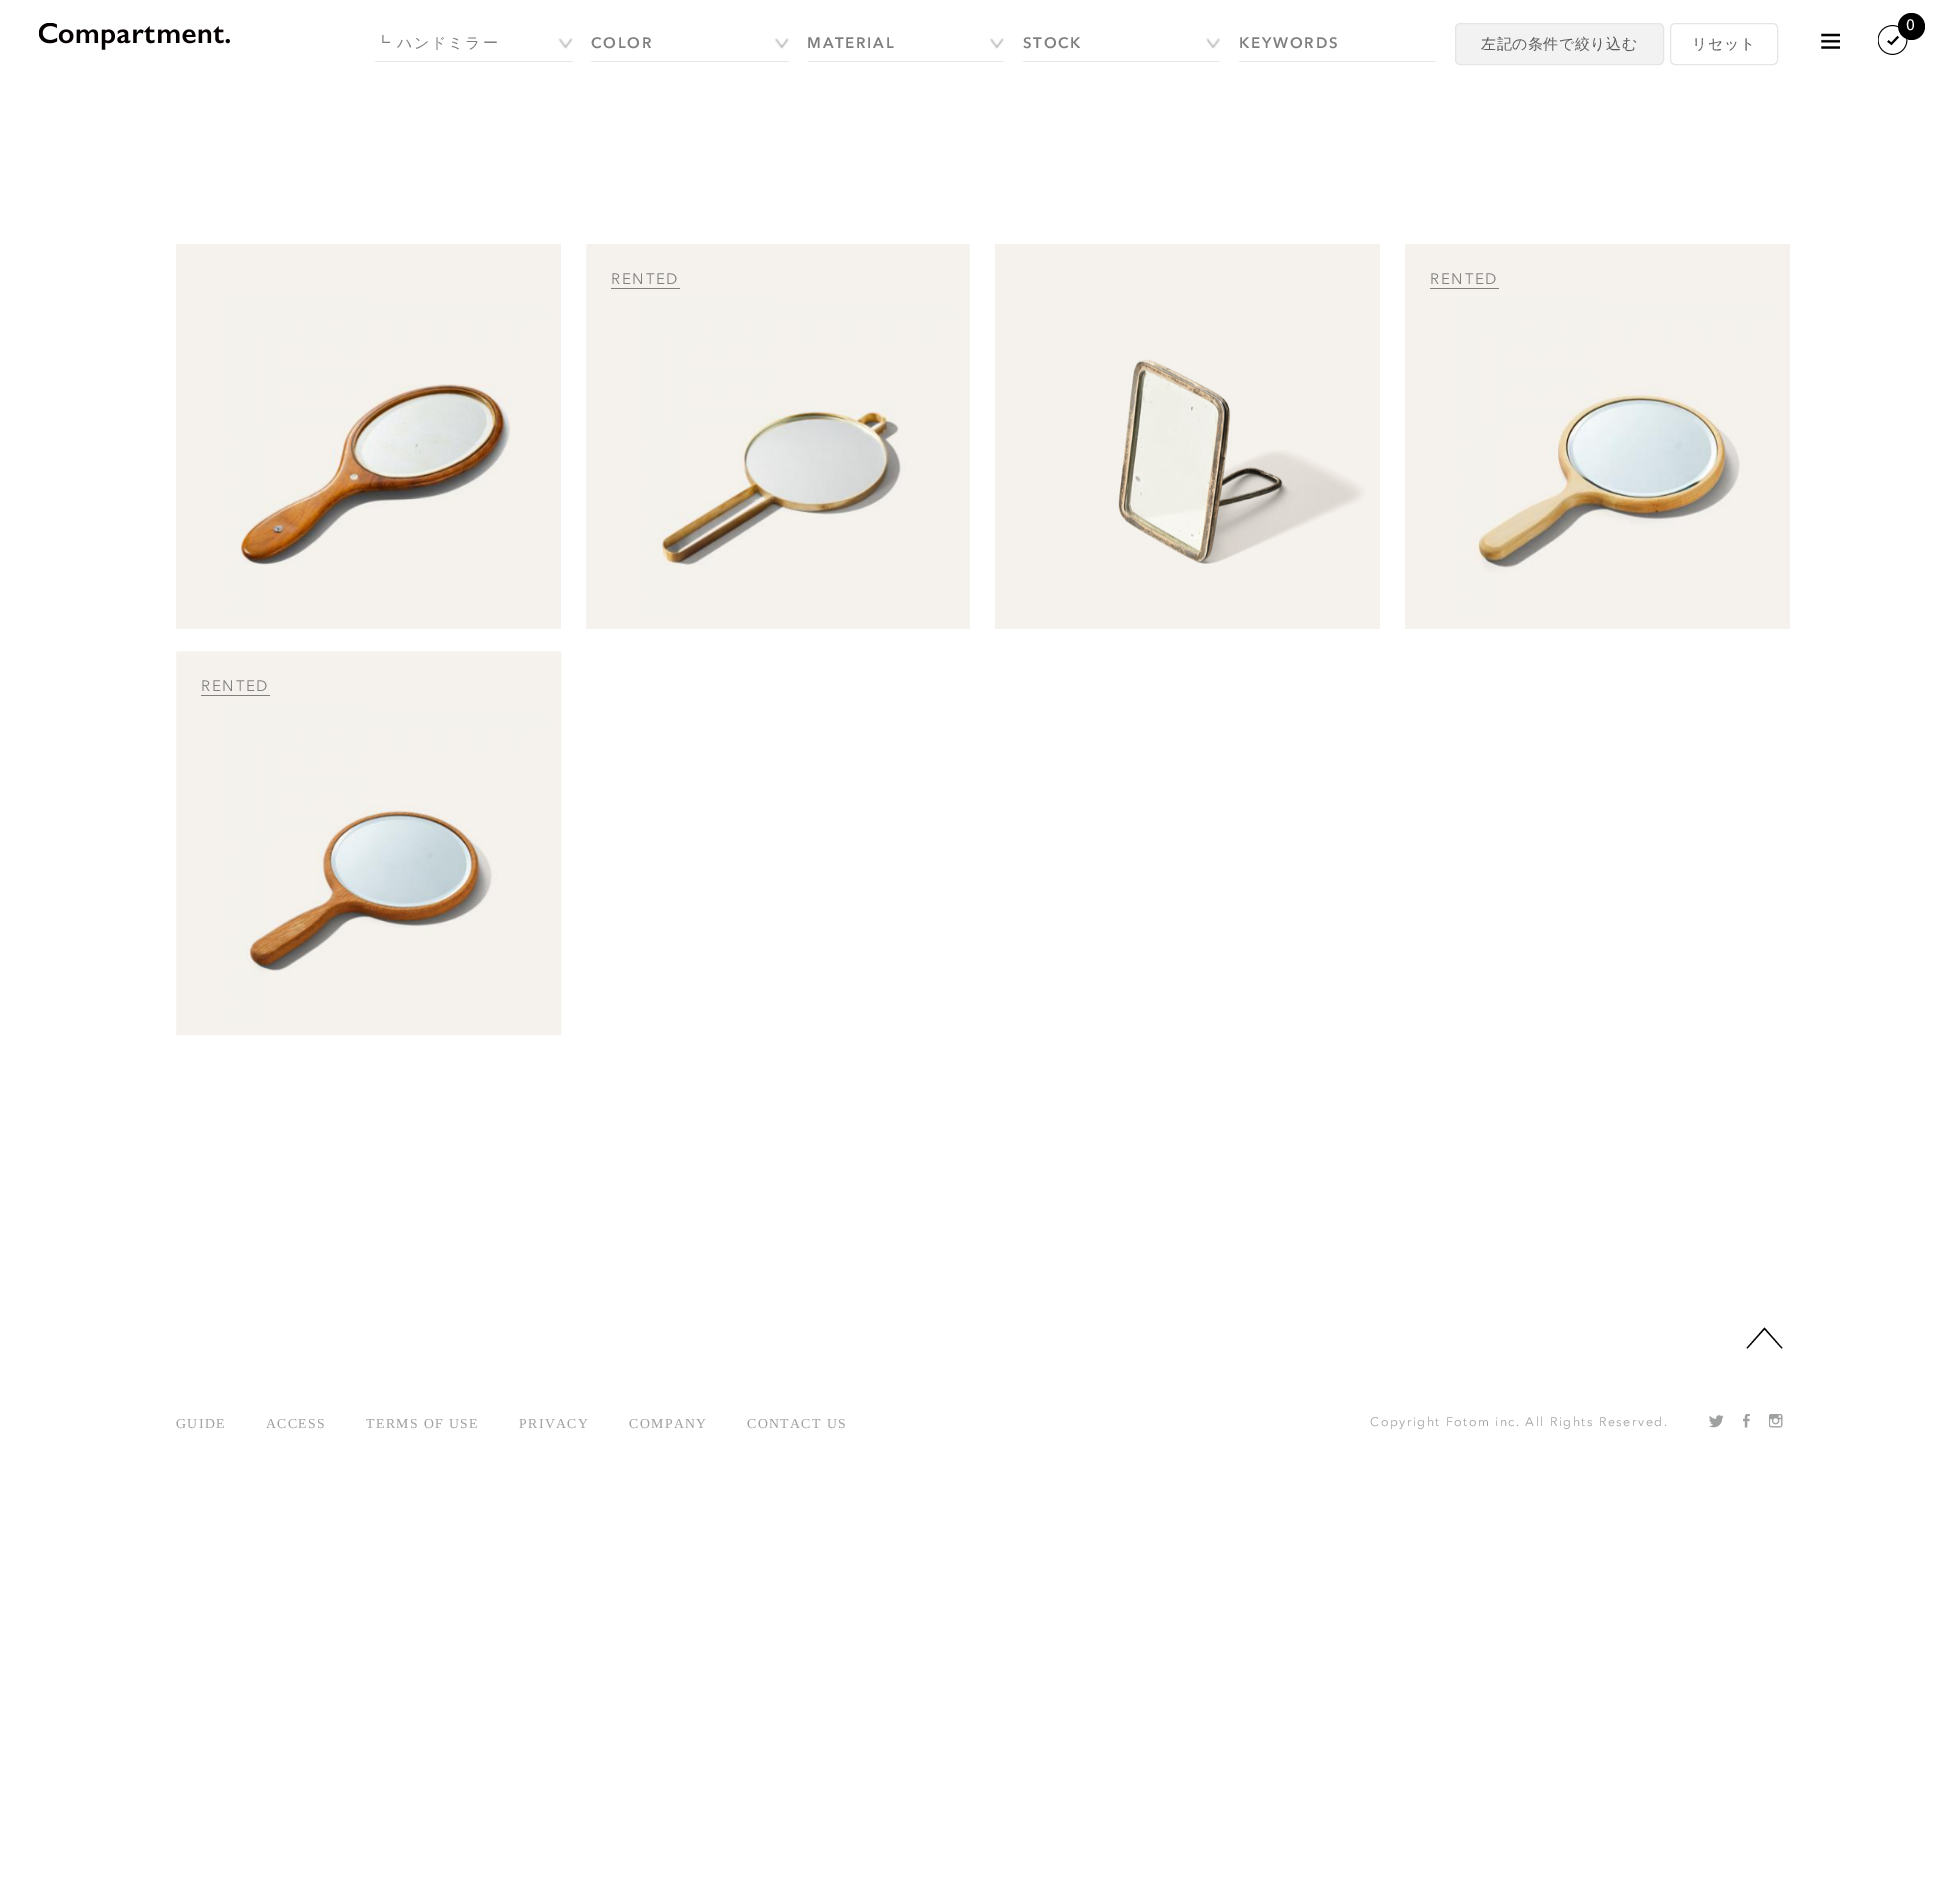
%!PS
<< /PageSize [1958 1881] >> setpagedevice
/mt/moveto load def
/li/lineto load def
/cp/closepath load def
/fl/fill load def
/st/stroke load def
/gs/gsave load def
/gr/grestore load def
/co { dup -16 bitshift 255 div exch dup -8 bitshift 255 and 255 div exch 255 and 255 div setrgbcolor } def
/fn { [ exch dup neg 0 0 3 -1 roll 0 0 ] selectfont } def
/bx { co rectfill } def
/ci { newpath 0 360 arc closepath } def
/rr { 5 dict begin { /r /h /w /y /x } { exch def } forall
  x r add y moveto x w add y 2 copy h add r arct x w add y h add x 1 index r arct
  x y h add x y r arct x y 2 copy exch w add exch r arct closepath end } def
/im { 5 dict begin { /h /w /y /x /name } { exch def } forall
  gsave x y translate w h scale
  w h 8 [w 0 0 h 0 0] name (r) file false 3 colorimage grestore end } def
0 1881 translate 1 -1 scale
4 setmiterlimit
0 0 1958 1881 16#FFFFFF bx
(media/1.raw) 39 23 191 27 im
375 61 198 1 16#E8E8E8 bx
(media/2.raw) 558 38 15 11 im
591 61 198 1 16#E8E8E8 bx
(media/3.raw) 774 38 15 11 im
808 61 196 1 16#E8E8E8 bx
(media/3.raw) 989 38 15 11 im
1023 61 197 1 16#E8E8E8 bx
(media/4.raw) 1206 38 15 11 im
1239 61 197 1 16#E8E8E8 bx
16#F2F2F2 co
1455.5 23.5 208 41 4.5 rr gs fl gr
16#E5E5E5 co
st
1670.5 23.5 107 41 4.5 rr st
16#000000 co
1911.5 26.5 13.5 ci fl
(media/5.raw) 1878 25 30 30 im
(media/6.raw) 1821 33 19 16 im
(media/7.raw) 176 244 385 385 im
(media/8.raw) 586 244 384 385 im
611 288 69 1 16#7F7F7F bx
(media/9.raw) 995 244 385 385 im
(media/10.raw) 1405 244 385 385 im
1430 288 69 1 16#7F7F7F bx
(media/11.raw) 176 651 386 385 im
201 695 69 1 16#7F7F7F bx
16#000000 co
1747.5 1348.5 mt 1746.5 1348 li 1764.5 1327.5 li 1782.5 1348 li 1781.5 1348.5 li 1764.5 1329.5 li cp fl
(media/12.raw) 1709 1415 15 13 im
(media/13.raw) 1743 1414 7 14 im
(media/14.raw) 1769 1414 14 14 im
/WenQuanYiZenHei-Medium 15 fn
16#7F7F7F co
375 48 mt -1 0 32 1.75 0 (┗ ハンドミラー) awidthshow
/AvenirNext-Bold 15 fn
591 48 mt 1.75 0 (COLOR) ashow
807 48 mt 1.75 0 (MATERIAL) ashow
1023 48 mt 1.75 0 (STOCK) ashow
1239 48 mt 1.75 0 (KEYWORDS) ashow
/WenQuanYiZenHei-Medium 15 fn
16#5A5A5A co
1481 49 mt .5 0 (左記の条件で絞り込む) ashow
1692 49 mt .5 0 (リセット) ashow
/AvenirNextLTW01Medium-Medium 15 fn
16#FFFFFF co
1906 30 mt 2 0 (0) ashow
/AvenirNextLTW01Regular-Regular 15 fn
16#7F7F7F co
611 284 mt 1.75 0 (RENTED) ashow
1430 284 mt 1.75 0 (RENTED) ashow
201 691 mt 1.75 0 (RENTED) ashow
/LiberationSerif-Regular 13.75 fn
16#9FA0A0 co
176 1428 mt 1.4 0 (GUIDE) ashow
266 1428 mt 1.4 0 (ACCESS) ashow
366 1428 mt 1.4 0 (TERMS OF USE) ashow
519 1428 mt 1.4 0 (PRIVACY) ashow
629 1428 mt 1.4 0 (COMPANY) ashow
747 1428 mt 1.4 0 (CONTACT US) ashow
/AvenirNextLTW01Regular-Regular 12.5 fn
1370 1426 mt 1.5 0 (Copyright Fotom inc. All Rights Reserved.) ashow
showpage
